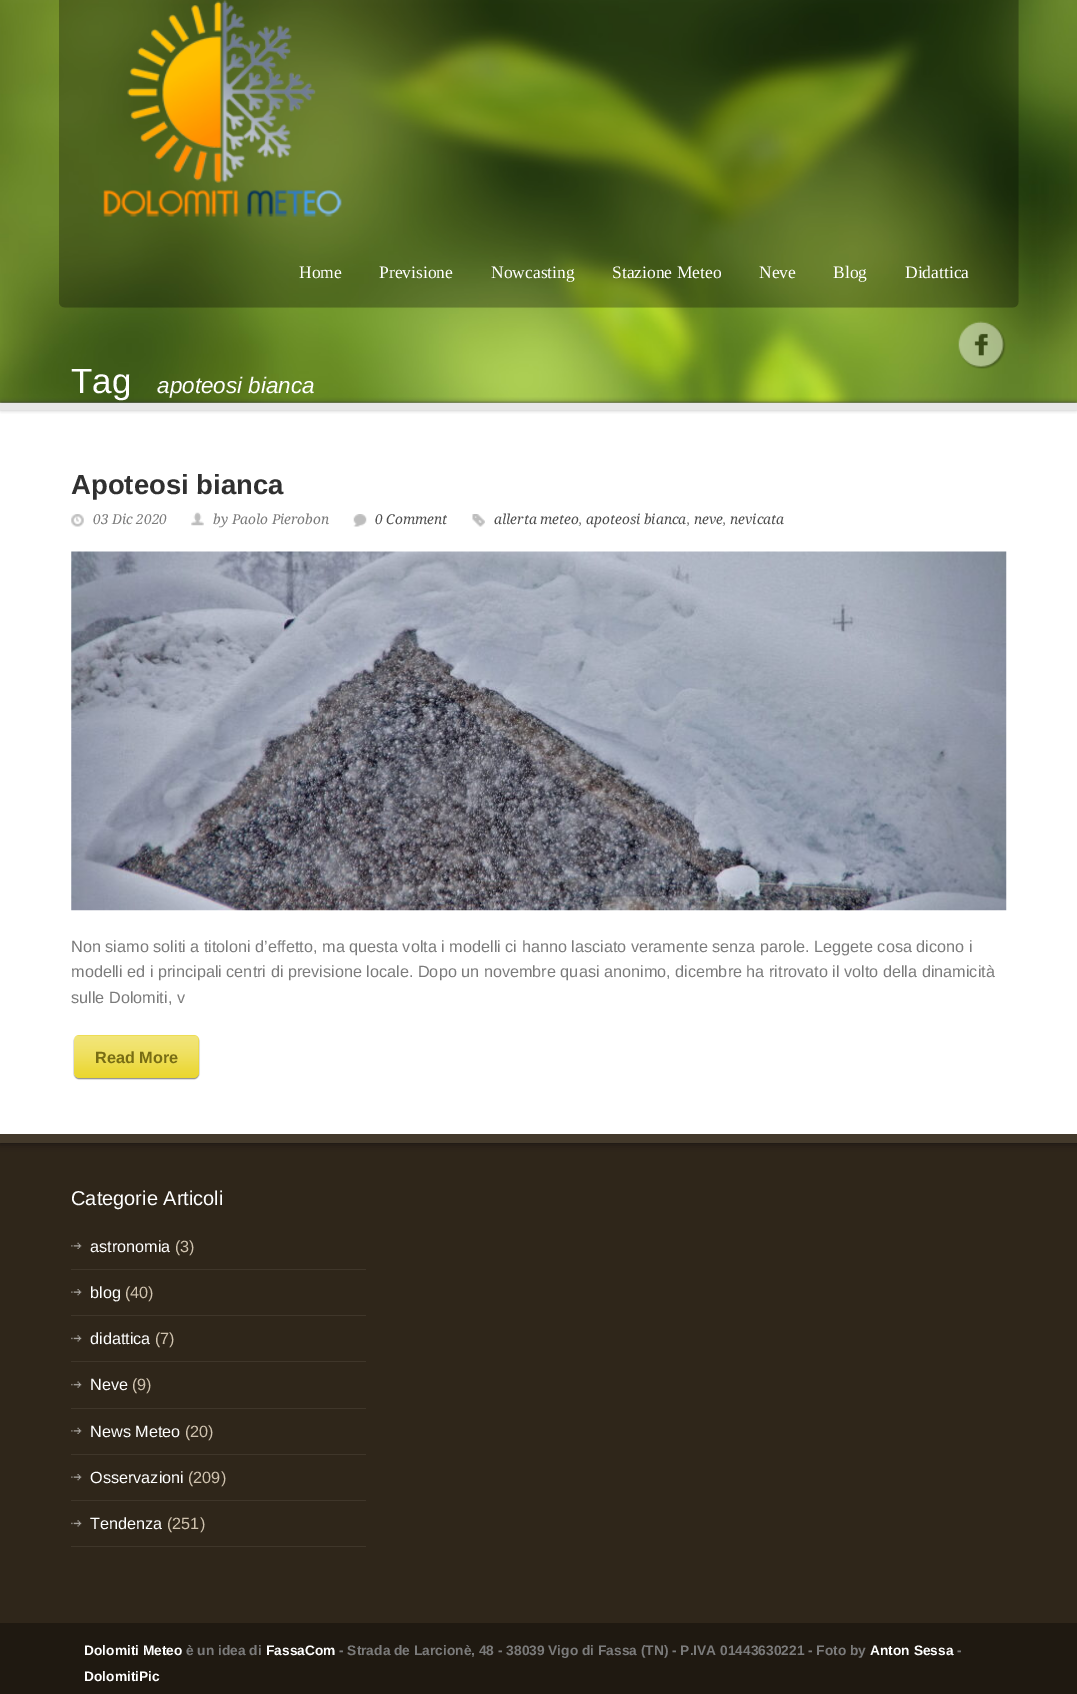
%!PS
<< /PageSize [1077 1694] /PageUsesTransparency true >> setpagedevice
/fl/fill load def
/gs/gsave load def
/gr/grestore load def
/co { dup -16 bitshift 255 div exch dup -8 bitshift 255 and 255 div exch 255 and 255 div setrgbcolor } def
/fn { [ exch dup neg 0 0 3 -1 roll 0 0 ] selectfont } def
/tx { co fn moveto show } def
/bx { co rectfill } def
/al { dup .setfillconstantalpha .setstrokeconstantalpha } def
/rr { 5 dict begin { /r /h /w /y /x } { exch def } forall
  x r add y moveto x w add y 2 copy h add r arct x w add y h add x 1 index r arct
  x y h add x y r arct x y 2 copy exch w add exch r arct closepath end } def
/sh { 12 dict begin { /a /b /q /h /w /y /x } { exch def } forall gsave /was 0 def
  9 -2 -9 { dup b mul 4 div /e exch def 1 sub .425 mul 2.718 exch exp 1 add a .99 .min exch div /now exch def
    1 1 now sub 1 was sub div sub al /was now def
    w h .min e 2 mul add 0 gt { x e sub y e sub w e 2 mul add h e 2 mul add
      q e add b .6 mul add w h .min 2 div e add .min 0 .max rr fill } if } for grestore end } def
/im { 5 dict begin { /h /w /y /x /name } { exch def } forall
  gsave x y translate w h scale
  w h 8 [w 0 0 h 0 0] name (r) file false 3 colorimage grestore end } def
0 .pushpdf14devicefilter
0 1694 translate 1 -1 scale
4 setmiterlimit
0 0 1077 1694 16#FFFFFF bx
(media/1.raw) 0 0 1077 403 im
(media/2.raw) 59 0 960 308 im
(media/3.raw) 103 0 239 217 im
(media/4.raw) 958 321 48 48 im
16#333333 co
1 403 1075 5 0 2.5 1 sh
0 403 1077 7 16#E7E7E7 bx
(media/5.raw) 71 514 13 13 im
(media/6.raw) 191 512 13 14 im
(media/7.raw) 353 514 14 13 im
(media/8.raw) 472 514 13 13 im
(media/9.raw) 71 551 936 360 im
16#888888 co
74 1036 125 43 5 .5 1 sh
16#E9D424 co
74 1035 125 43 5 rr fl
(media/10.raw) 74 1035 125 43 im
0 1143 1077 480 16#2F261A bx
gs
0 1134 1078 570 rectclip
16#111111 co
0 1134 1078 9 0 4 1 sh
gr
0 1134 1077 9 16#43392B bx
(media/11.raw) 71 1242 11 7 im
71 1269 295 1 16#3F362A bx
(media/12.raw) 71 1289 11 7 im
71 1315 295 1 16#3F362A bx
(media/13.raw) 71 1335 11 7 im
71 1361 295 1 16#3F362A bx
(media/14.raw) 71 1381 11 7 im
71 1408 295 1 16#3F362A bx
(media/11.raw) 71 1427 11 7 im
71 1454 295 1 16#3F362A bx
(media/12.raw) 71 1474 11 7 im
71 1500 295 1 16#3F362A bx
(media/15.raw) 71 1520 11 7 im
71 1546 295 1 16#3F362A bx
0 1623 1077 71 16#1F1911 bx
(Home) 299 278 /LiberationSerif-Regular 17.5 16#FFFFFF tx
(Previsione) 379 278 /LiberationSerif-Regular 17.5 16#FFFFFF tx
(Nowcasting) 491 278 /LiberationSerif-Regular 17.5 16#FFFFFF tx
(Stazione Meteo) 612 278 /LiberationSerif-Regular 17.5 16#FFFFFF tx
(Neve) 759 278 /LiberationSerif-Regular 17.5 16#FFFFFF tx
(Blog) 833 278 /LiberationSerif-Regular 17.5 16#FFFFFF tx
(Didattica) 905 278 /LiberationSerif-Regular 17.5 16#FFFFFF tx
(Tag) 71 393 /LiberationSans-Regular 35 16#FFFFFF tx
(apoteosi bianca) 157 393 /LiberationSans-Italic 22.5 16#FFFFFF tx
(Apoteosi bianca) 71 494 /LiberationSans-Bold 27.5 16#303030 tx
(03 Dic 2020) 93 524 /DroidSerif-Italic 13.75 16#7B7B7B tx
(by Paolo Pierobon) 213 524 /DroidSerif-Italic 13.75 16#7B7B7B tx
(0 Comment) 375 524 /DroidSerif-Italic 13.75 16#4F4F4F tx
(allerta meteo) 494 524 /DroidSerif-Italic 13.75 16#4F4F4F tx
(,) 579 524 /DroidSerif-Italic 13.75 16#7B7B7B tx
(apoteosi bianca) 586 524 /DroidSerif-Italic 13.75 16#4F4F4F tx
(,) 687 524 /DroidSerif-Italic 13.75 16#7B7B7B tx
(neve) 694 524 /DroidSerif-Italic 13.75 16#4F4F4F tx
(,) 723 524 /DroidSerif-Italic 13.75 16#7B7B7B tx
(nevicata) 730 524 /DroidSerif-Italic 13.75 16#4F4F4F tx
(Non siamo soliti a titoloni d’effetto, ma questa volta i modelli ci hanno lasciato veramente senza parole. Leggete cosa dicono i) 71 952 /LiberationSans-Regular 16.25 16#7B7B7B tx
(modelli ed i principali centri di previsione locale. Dopo un novembre quasi anonimo, dicembre ha ritrovato il volto della dinamicità) 71 977 /LiberationSans-Regular 16.25 16#7B7B7B tx
(sulle Dolomiti, v) 71 1003 /LiberationSans-Regular 16.25 16#7B7B7B tx
(Read More) 95 1063 /LiberationSans-Bold 16.25 16#786D14 tx
(Categorie Articoli) 71 1205 /LiberationSans-Regular 20 16#FFFFFF tx
(astronomia) 90 1252 /LiberationSans-Regular 16.25 16#FFFFFF tx
(\(3\)) 175 1252 /LiberationSans-Regular 16.25 16#CFC2AE tx
(blog) 90 1298 /LiberationSans-Regular 16.25 16#FFFFFF tx
(\(40\)) 125 1298 /LiberationSans-Regular 16.25 16#CFC2AE tx
(didattica) 90 1344 /LiberationSans-Regular 16.25 16#FFFFFF tx
(\(7\)) 155 1344 /LiberationSans-Regular 16.25 16#CFC2AE tx
(Neve) 90 1390 /LiberationSans-Regular 16.25 16#FFFFFF tx
(\(9\)) 132 1390 /LiberationSans-Regular 16.25 16#CFC2AE tx
(News Meteo) 90 1437 /LiberationSans-Regular 16.25 16#FFFFFF tx
(\(20\)) 185 1437 /LiberationSans-Regular 16.25 16#CFC2AE tx
(Osservazioni) 90 1483 /LiberationSans-Regular 16.25 16#FFFFFF tx
(\(209\)) 188 1483 /LiberationSans-Regular 16.25 16#CFC2AE tx
(Tendenza) 90 1529 /LiberationSans-Regular 16.25 16#FFFFFF tx
(\(251\)) 167 1529 /LiberationSans-Regular 16.25 16#CFC2AE tx
(Dolomiti Meteo) 84 1655 /LiberationSans-Bold 13.75 16#FFFFFF tx
(è un idea di) 186 1655 /LiberationSans-Bold 13.75 16#7B7B7B tx
(FassaCom) 266 1655 /LiberationSans-Bold 13.75 16#FFFFFF tx
(- Strada de Larcionè, 48 - 38039 Vigo di Fassa \(TN\) - P.IVA 01443630221 - Foto by) 339 1655 /LiberationSans-Bold 13.75 16#7B7B7B tx
(Anton Sessa) 870 1655 /LiberationSans-Bold 13.75 16#FFFFFF tx
(-) 957 1655 /LiberationSans-Bold 13.75 16#7B7B7B tx
(DolomitiPic) 84 1681 /LiberationSans-Bold 13.75 16#FFFFFF tx
.poppdf14devicefilter showpage
